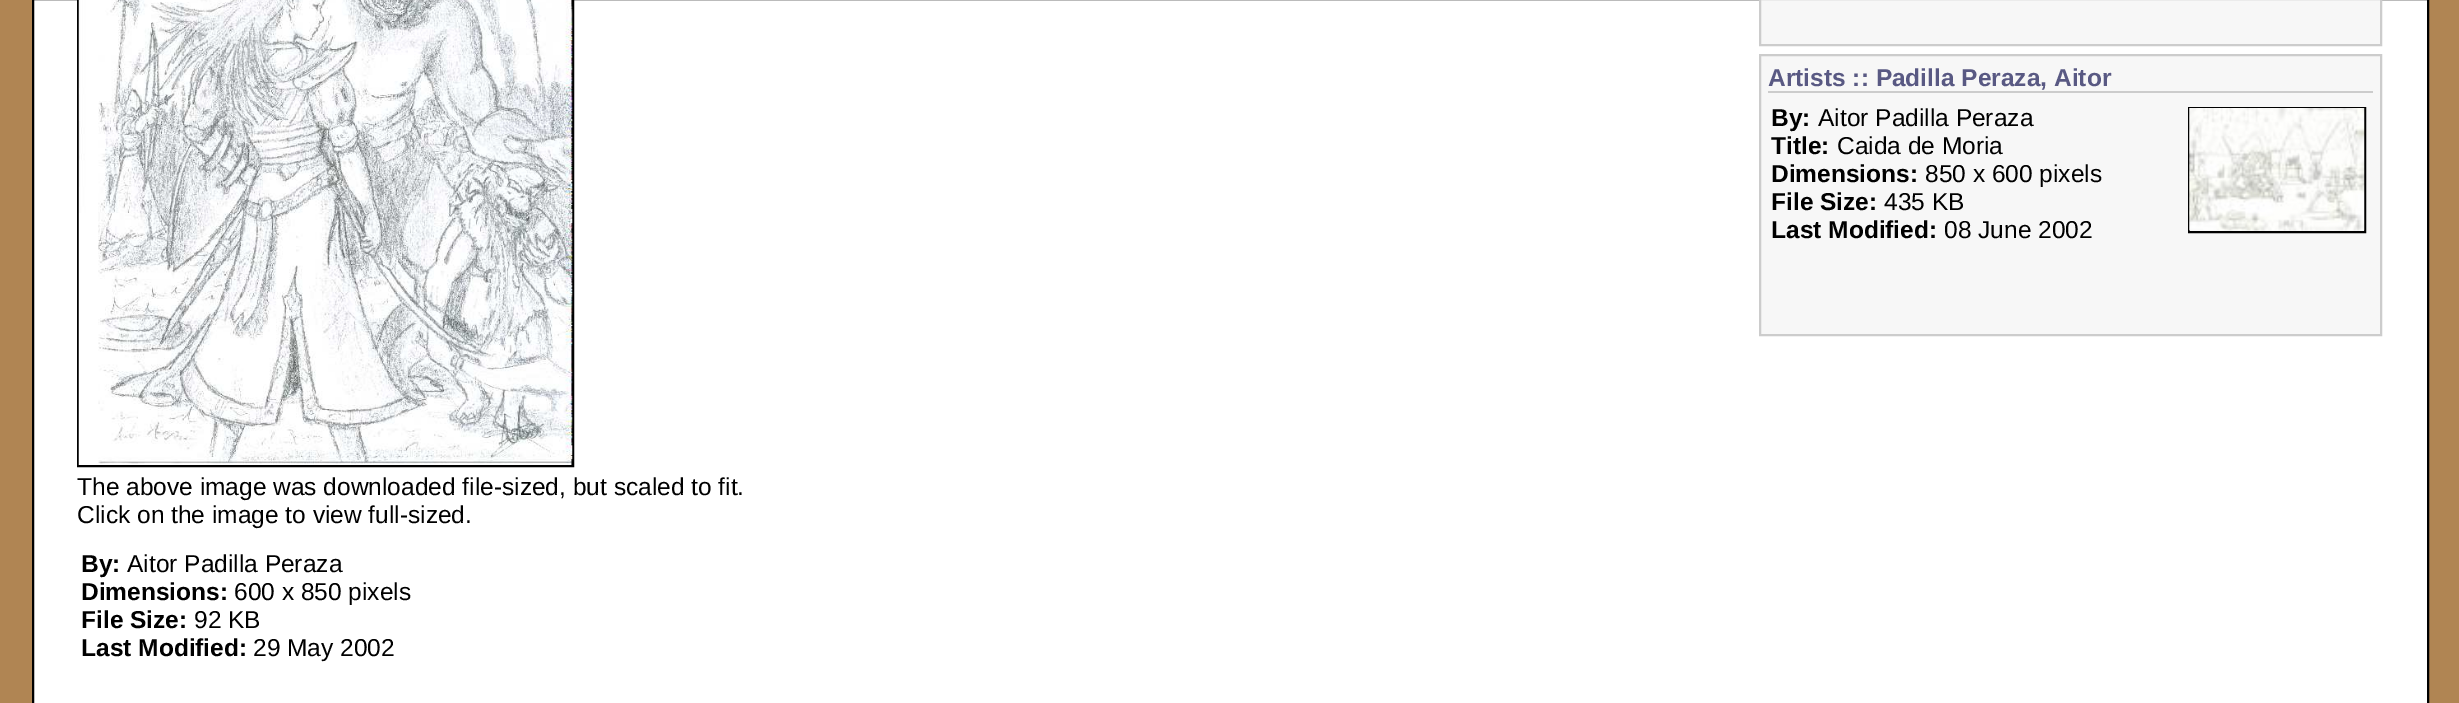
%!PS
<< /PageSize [2459 703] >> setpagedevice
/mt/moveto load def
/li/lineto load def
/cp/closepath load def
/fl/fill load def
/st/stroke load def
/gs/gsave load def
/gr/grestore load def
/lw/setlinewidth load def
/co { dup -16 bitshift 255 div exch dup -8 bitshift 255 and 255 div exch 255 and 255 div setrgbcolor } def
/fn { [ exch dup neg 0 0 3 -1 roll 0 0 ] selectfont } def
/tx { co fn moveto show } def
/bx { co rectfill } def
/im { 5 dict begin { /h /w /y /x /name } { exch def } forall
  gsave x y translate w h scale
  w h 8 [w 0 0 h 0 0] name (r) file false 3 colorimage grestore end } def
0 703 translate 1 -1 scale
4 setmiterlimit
0 0 2459 703 16#B08553 bx
16#FFFFFF co
33 -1 mt 2428 -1 li 2428 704 li 33 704 li cp gs fl gr
16#000000 co
2 lw
st
16#F7F7F7 co
1760 -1 mt 2381 -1 li 2381 45 li 1760 45 li cp gs fl gr
16#CCCCCC co
st
16#F7F7F7 co
1760 55 mt 2381 55 li 2381 335 li 1760 335 li cp gs fl gr
16#CCCCCC co
st
1768 91 605 2 16#CCCCCC bx
16#000000 co
2189 108 176 124 rectstroke
(media/1.raw) 2189 108 176 123 im
78 -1 495 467 rectstroke
(media/2.raw) 78 0 495 465 im
(Artists :: Padilla Peraza, Aitor) 1768 86 /LiberationSans-Bold 24.5 16#595983 tx
(By:) 1771 126 /LiberationSans-Bold 24.5 16#000000 tx
(Aitor Padilla Peraza) 1818 126 /LiberationSans-Regular 24.5 16#000000 tx
(Title:) 1771 154 /LiberationSans-Bold 24.5 16#000000 tx
(Caida de Moria) 1837 154 /LiberationSans-Regular 24.5 16#000000 tx
(Dimensions:) 1771 182 /LiberationSans-Bold 24.5 16#000000 tx
(850 x 600 pixels) 1925 182 /LiberationSans-Regular 24.5 16#000000 tx
(File Size:) 1771 210 /LiberationSans-Bold 24.5 16#000000 tx
(435 KB) 1884 210 /LiberationSans-Regular 24.5 16#000000 tx
(Last Modified:) 1771 238 /LiberationSans-Bold 24.5 16#000000 tx
(08 June 2002) 1944 238 /LiberationSans-Regular 24.5 16#000000 tx
(The above image was downloaded file-sized, but scaled to fit.) 77 495 /LiberationSans-Regular 24.5 16#000000 tx
(Click on the image to view full-sized.) 77 523 /LiberationSans-Regular 24.5 16#000000 tx
(By:) 81 572 /LiberationSans-Bold 24.5 16#000000 tx
(Aitor Padilla Peraza) 127 572 /LiberationSans-Regular 24.5 16#000000 tx
(Dimensions:) 81 600 /LiberationSans-Bold 24.5 16#000000 tx
(600 x 850 pixels) 234 600 /LiberationSans-Regular 24.5 16#000000 tx
(File Size:) 81 628 /LiberationSans-Bold 24.5 16#000000 tx
(92 KB) 194 628 /LiberationSans-Regular 24.5 16#000000 tx
(Last Modified:) 81 656 /LiberationSans-Bold 24.5 16#000000 tx
(29 May 2002) 253 656 /LiberationSans-Regular 24.5 16#000000 tx
showpage
